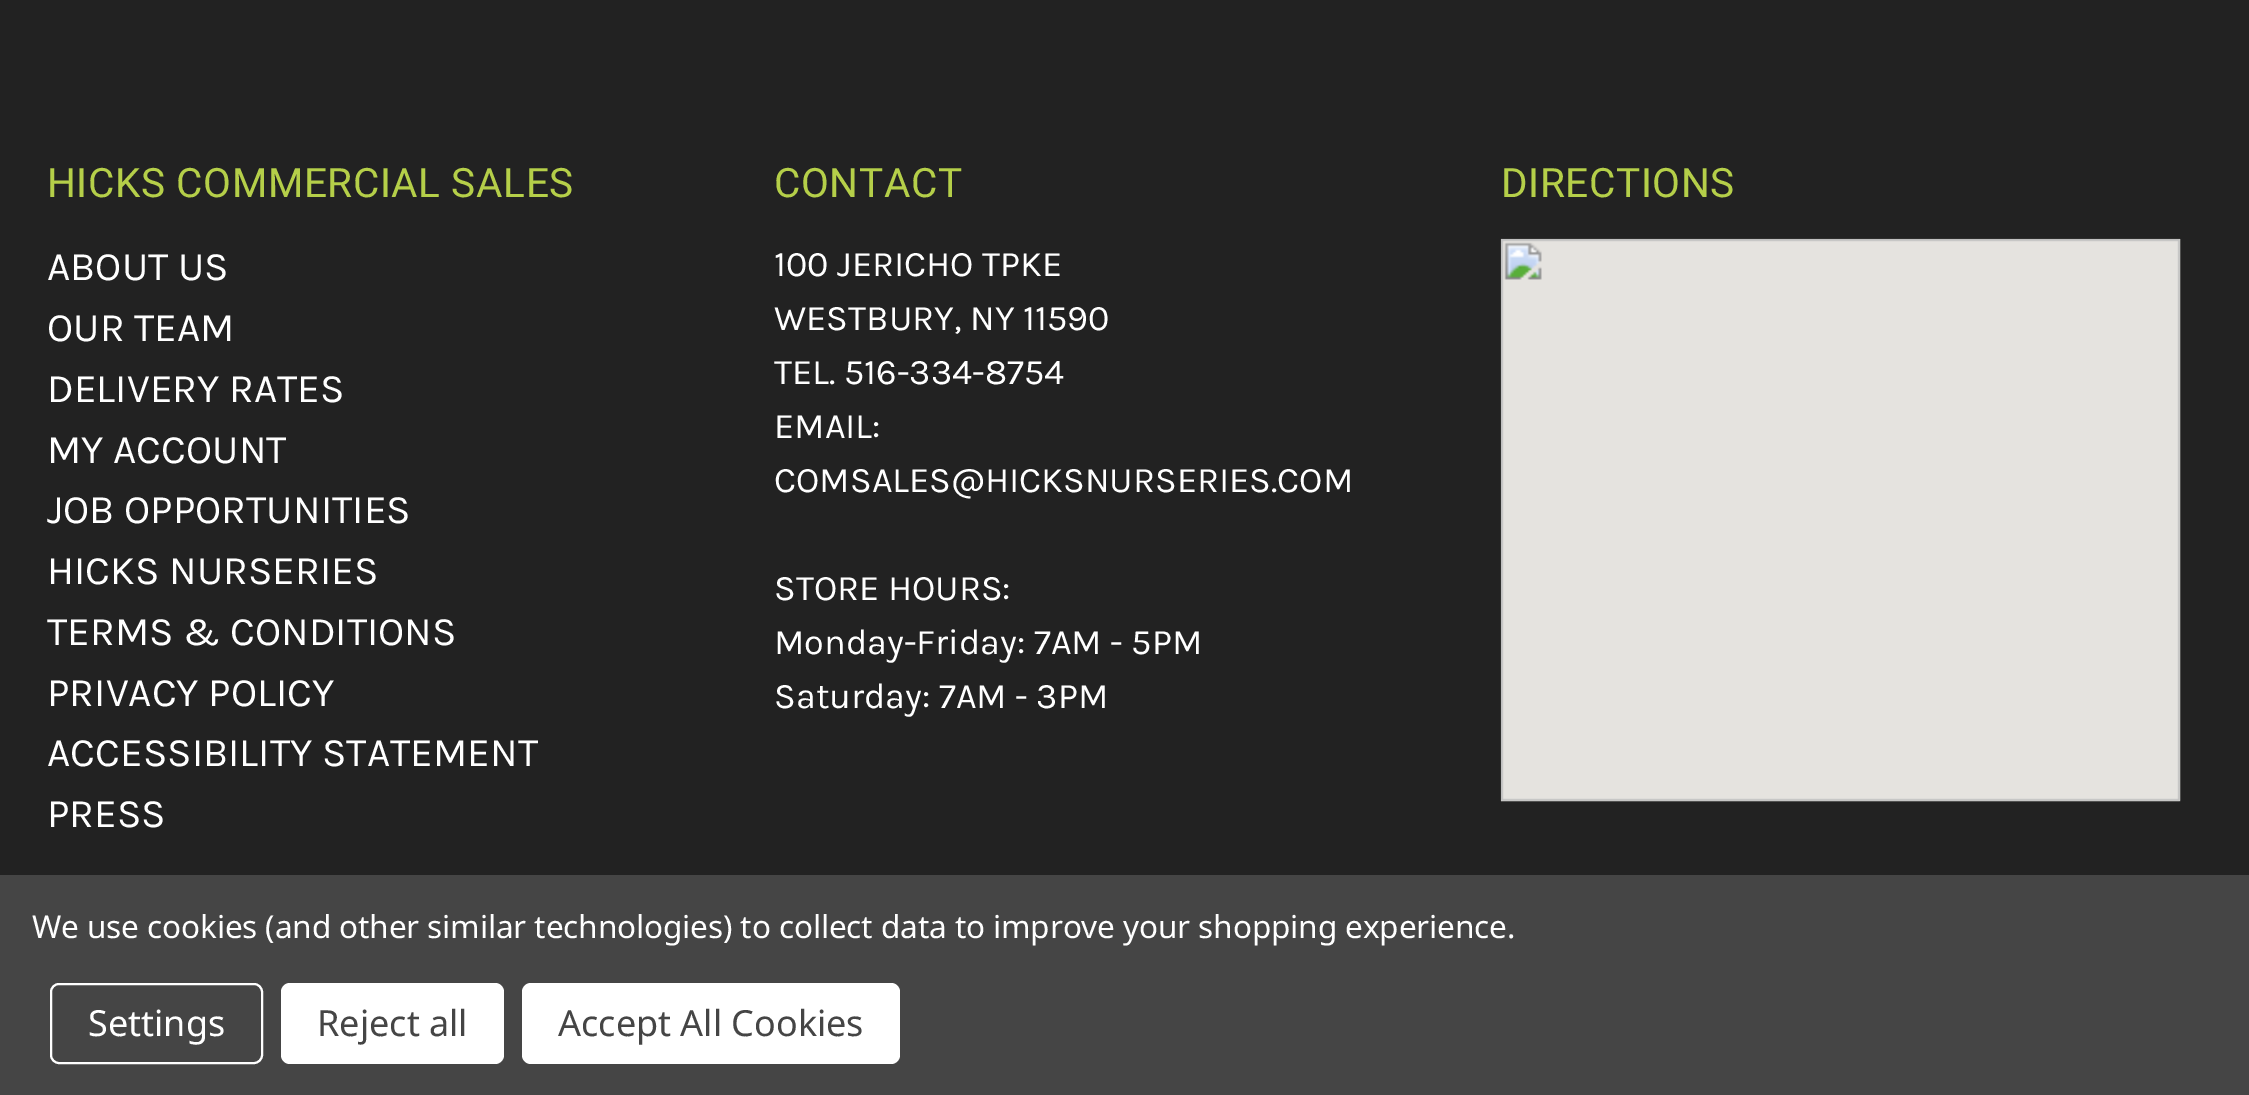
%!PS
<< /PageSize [2249 1095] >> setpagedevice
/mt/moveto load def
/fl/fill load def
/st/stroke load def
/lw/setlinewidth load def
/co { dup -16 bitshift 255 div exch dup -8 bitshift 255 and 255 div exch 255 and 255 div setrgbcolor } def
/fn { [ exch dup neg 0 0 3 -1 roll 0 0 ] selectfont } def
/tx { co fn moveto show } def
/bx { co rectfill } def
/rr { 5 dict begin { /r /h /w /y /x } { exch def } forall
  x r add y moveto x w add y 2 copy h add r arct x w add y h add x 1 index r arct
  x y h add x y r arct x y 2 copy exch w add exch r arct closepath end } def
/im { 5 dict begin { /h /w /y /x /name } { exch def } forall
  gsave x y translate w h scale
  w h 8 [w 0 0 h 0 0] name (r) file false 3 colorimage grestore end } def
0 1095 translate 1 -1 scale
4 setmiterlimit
0 0 2249 1095 16#222222 bx
(media/1.raw) 1500 238 681 564 im
0 875 2249 220 16#454545 bx
16#FFFFFF co
2 lw
51 984 211 79 8 rr st
281 983 223 81 9 rr fl
522 983 378 81 9 rr fl
/Roboto-Regular 40.5 fn
16#B5CF49 co
47 197 mt .6 0 (HICKS COMMERCIAL SALES) ashow
(ABOUT US) 47 280 /Karla-Regular 40.5 16#FFFFFF tx
(OUR TEAM) 47 341 /Karla-Regular 40.5 16#FFFFFF tx
(DELIVERY RATES) 47 402 /Karla-Regular 40.5 16#FFFFFF tx
(MY ACCOUNT) 47 463 /Karla-Regular 40.5 16#FFFFFF tx
(JOB OPPORTUNITIES) 47 523 /Karla-Regular 40.5 16#FFFFFF tx
(HICKS NURSERIES) 47 584 /Karla-Regular 40.5 16#FFFFFF tx
(TERMS & CONDITIONS) 47 645 /Karla-Regular 40.5 16#FFFFFF tx
(PRIVACY POLICY) 47 706 /Karla-Regular 40.5 16#FFFFFF tx
(ACCESSIBILITY STATEMENT) 47 766 /Karla-Regular 40.5 16#FFFFFF tx
(PRESS) 47 827 /Karla-Regular 40.5 16#FFFFFF tx
/Roboto-Regular 40.5 fn
16#B5CF49 co
774 197 mt .6 0 (CONTACT) ashow
(100 JERICHO TPKE) 774 276 /Karla-Regular 36 16#FFFFFF tx
(WESTBURY, NY 11590) 774 330 /Karla-Regular 36 16#FFFFFF tx
(TEL. 516-334-8754) 774 384 /Karla-Regular 36 16#FFFFFF tx
(EMAIL:) 774 438 /Karla-Regular 36 16#FFFFFF tx
(COMSALES@HICKSNURSERIES.COM) 774 492 /Karla-Regular 36 16#FFFFFF tx
(STORE HOURS:) 774 600 /Karla-Regular 36 16#FFFFFF tx
(Monday-Friday: 7AM - 5PM) 774 654 /Karla-Regular 36 16#FFFFFF tx
(Saturday: 7AM - 3PM) 774 708 /Karla-Regular 36 16#FFFFFF tx
/Roboto-Regular 40.5 fn
16#B5CF49 co
1501 197 mt .6 0 (DIRECTIONS) ashow
/NotoSans-Regular 31.5 fn
16#FFFFFF co
32 938 mt -.1 0 (We use cookies \(and other similar technologies\) to collect data to improve your shopping experience.) ashow
(Settings) 88 1036 /NotoSans-Regular 36 16#FFFFFF tx
(Reject all) 317 1036 /NotoSans-Regular 36 16#454545 tx
(Accept All Cookies) 558 1036 /NotoSans-Regular 36 16#454545 tx
showpage
